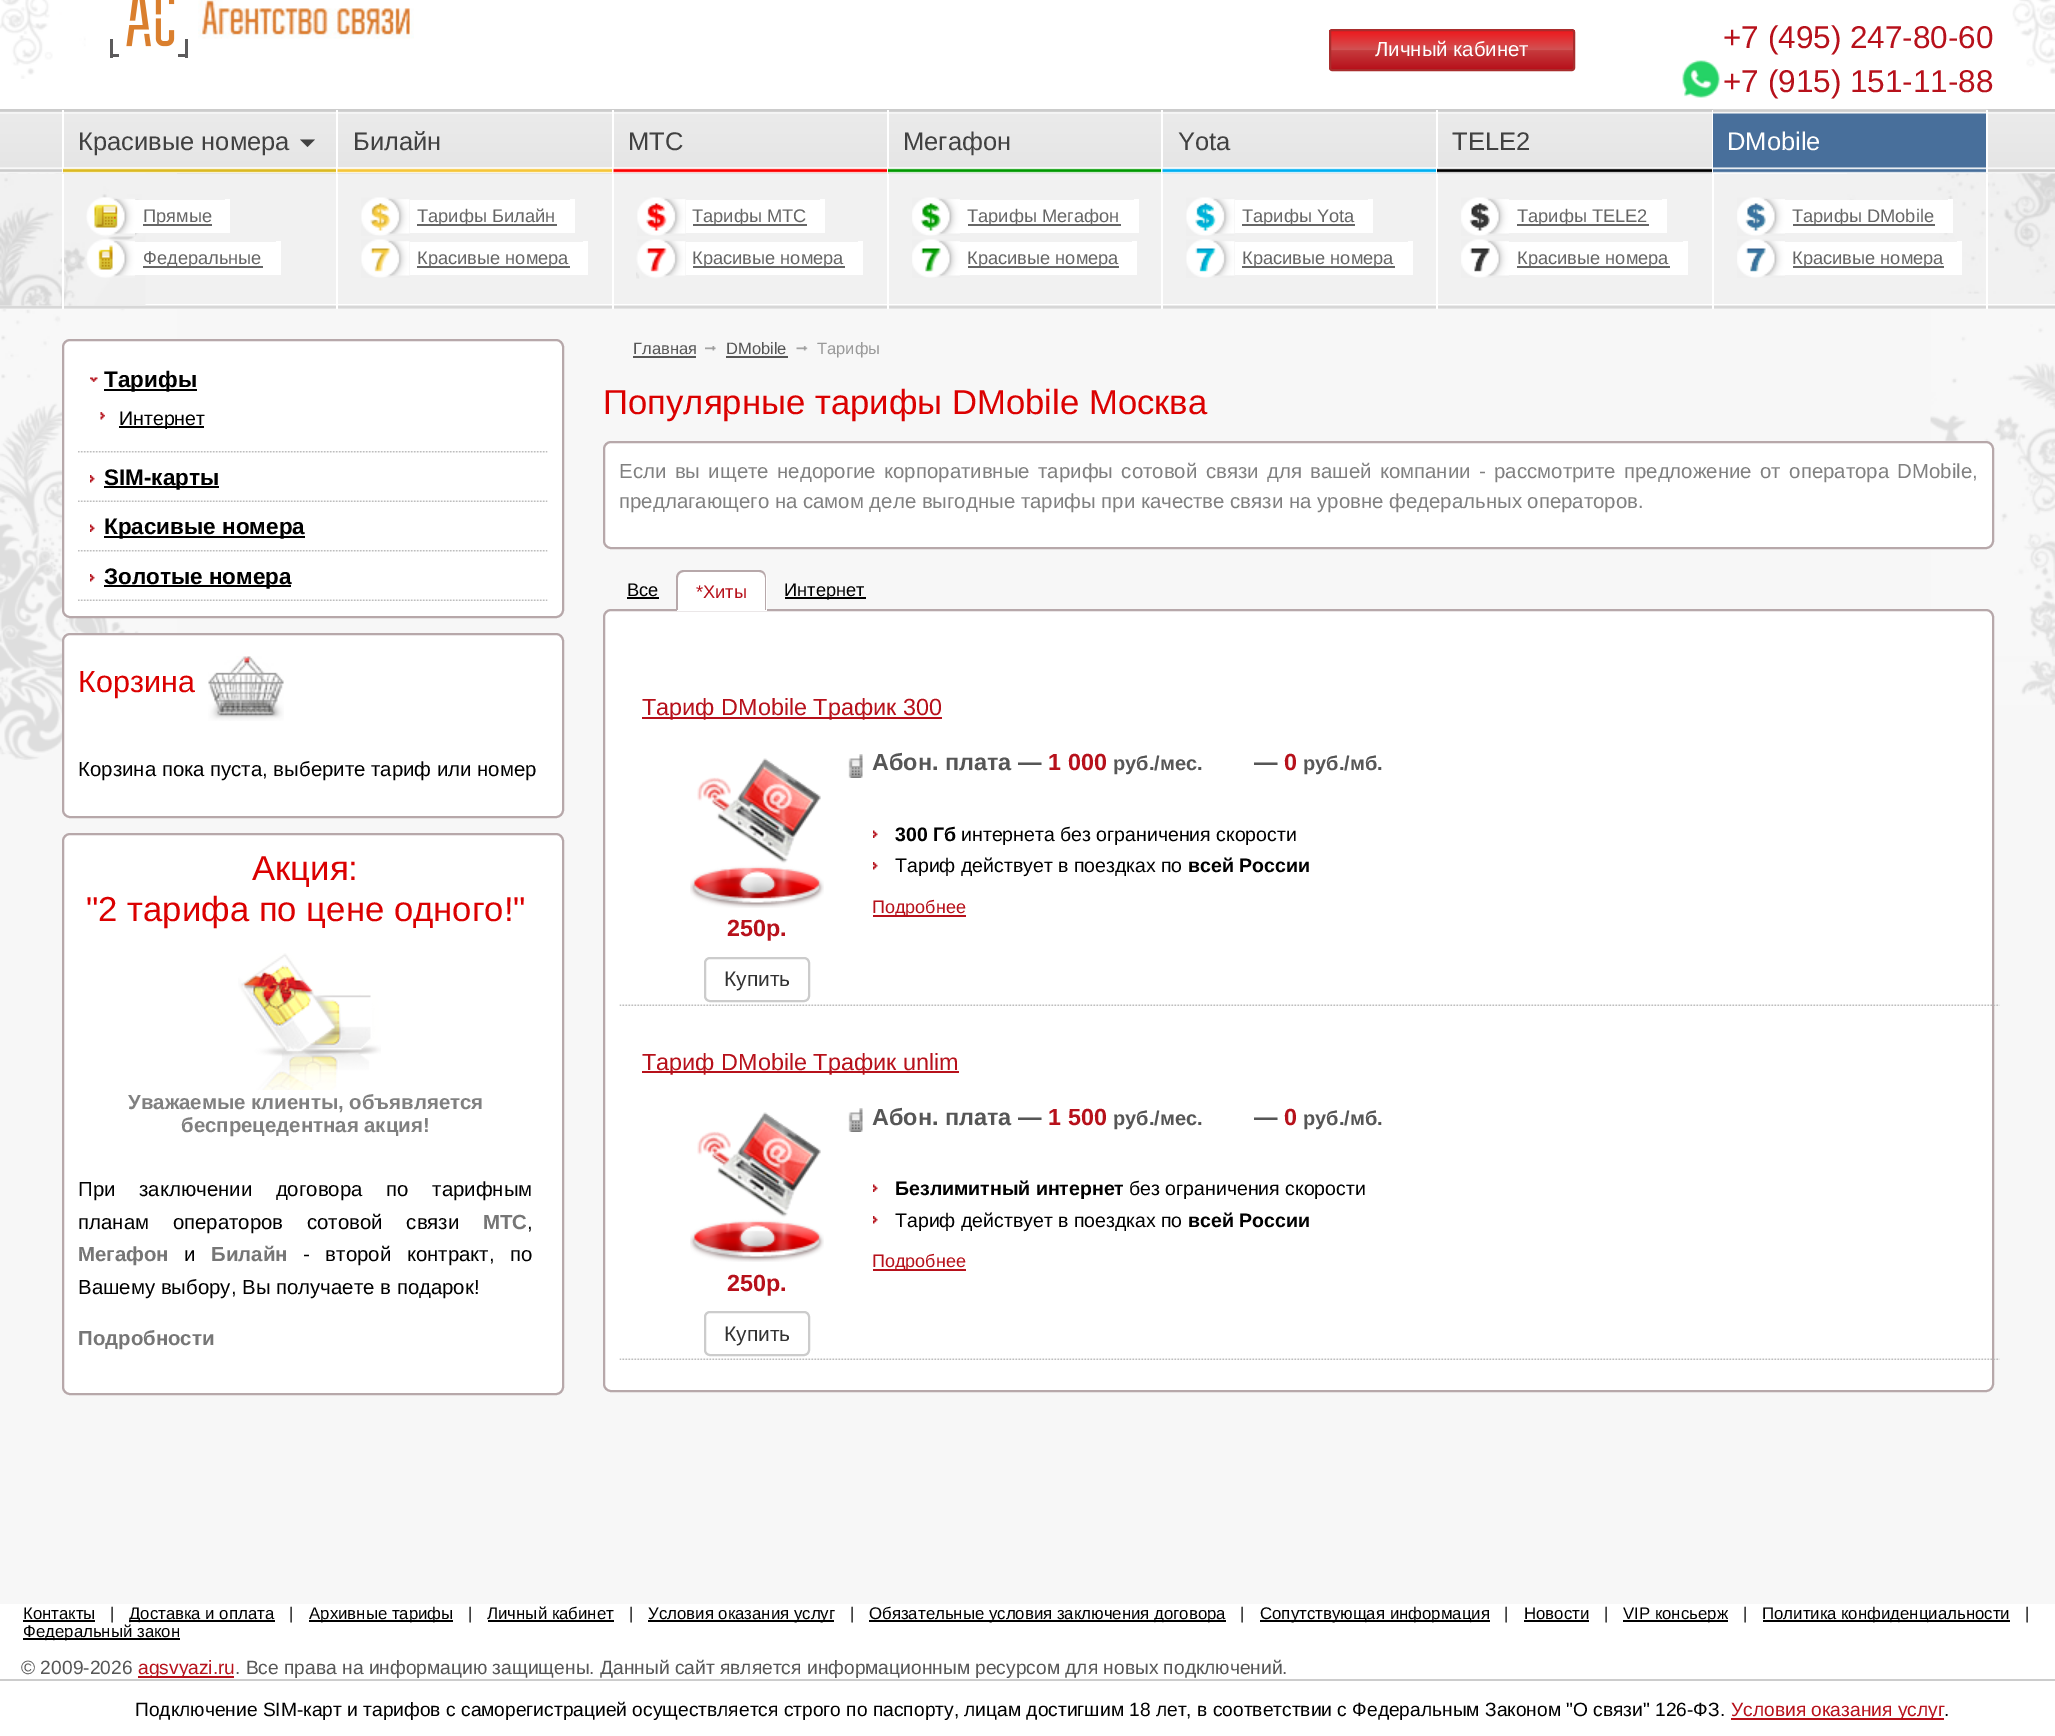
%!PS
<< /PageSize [2055 1736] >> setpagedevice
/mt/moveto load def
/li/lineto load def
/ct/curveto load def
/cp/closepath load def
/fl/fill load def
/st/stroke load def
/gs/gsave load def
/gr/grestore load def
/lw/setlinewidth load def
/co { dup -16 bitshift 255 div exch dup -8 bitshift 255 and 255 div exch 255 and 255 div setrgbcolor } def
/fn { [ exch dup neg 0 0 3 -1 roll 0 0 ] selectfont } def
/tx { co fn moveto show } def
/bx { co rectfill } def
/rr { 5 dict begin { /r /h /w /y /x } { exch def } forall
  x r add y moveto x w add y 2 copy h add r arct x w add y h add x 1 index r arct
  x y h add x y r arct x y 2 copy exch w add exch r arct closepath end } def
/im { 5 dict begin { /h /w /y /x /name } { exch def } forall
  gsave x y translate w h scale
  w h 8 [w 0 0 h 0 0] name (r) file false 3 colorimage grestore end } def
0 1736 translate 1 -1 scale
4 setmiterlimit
0 0 2055 1736 16#F7F7F7 bx
0 0 2055 109 16#FFFFFF bx
(media/1.raw) 0 0 86 79 im
(media/2.raw) 110 0 78 58 im
(media/3.raw) 198 0 216 39 im
gs
1329 29 246 42 3 rr clip newpath
gs 1329 30 mt 1575 30 li 1575 69 li 1329 69 li cp clip newpath
<< /ShadingType 2 /ColorSpace /DeviceRGB /Coords [1452 30 1452 69] /Extend [true true] /Function << /FunctionType 3 /Domain [0 1] /Functions [<< /FunctionType 2 /Domain [0 1] /C0 [.937 .09 .106] /C1 [.82 .318 .325] /N 1 >> << /FunctionType 2 /Domain [0 1] /C0 [.82 .318 .325] /C1 [.776 .231 .239] /N 1 >> << /FunctionType 2 /Domain [0 1] /C0 [.776 .231 .239] /C1 [.718 .067 .106] /N 1 >>] /Bounds [.5 .52] /Encode [0 1 0 1 0 1] >> >> shfill gr
gr
16#A92D2D co
2 lw
1330 30 244 40 2 rr st
(media/4.raw) 1682 60 38 38 im
(media/5.raw) 2012 0 43 74 im
(media/6.raw) 0 109 2055 65 im
62 110 2 64 16#FFFFFF bx
(media/7.raw) 63 167 273 7 im
336 110 2 70 16#FFFFFF bx
16#414141 co
300 139.5 mt 315 139.5 li 307.5 147 li cp fl
(media/8.raw) 337 167 275 7 im
612 110 2 70 16#FFFFFF bx
(media/9.raw) 613 167 274 7 im
887 110 2 70 16#FFFFFF bx
(media/10.raw) 888 167 273 7 im
1161 110 2 70 16#FFFFFF bx
(media/11.raw) 1162 167 274 7 im
1436 110 2 70 16#FFFFFF bx
(media/12.raw) 1437 167 275 7 im
1712 110 2 70 16#FFFFFF bx
(media/13.raw) 1713 109 275 64 im
1986 110 2 70 16#FFFFFF bx
(media/14.raw) 0 173 177 587 im
(media/32.raw) 1930 173 125 532 im
0 174 2055 135 16#F1F1F1 bx
(media/15.raw) 0 304 2055 5 im
(media/16.raw) 0 173 146 133 im
62 174 2 135 16#FFFFFF bx
336 174 2 135 16#FFFFFF bx
(media/17.raw) 86 197 49 40 im
135 200 95 33 16#FFFFFF bx
225 199 5 1 16#FFFFFF bx
143 224 69 2 16#666666 bx
(media/18.raw) 85 239 50 39 im
135 242 146 33 16#FFFFFF bx
276 241 5 1 16#FFFFFF bx
143 266 120 2 16#666666 bx
612 174 2 135 16#FFFFFF bx
(media/19.raw) 361 197 49 39 im
410 200 165 33 16#FFFFFF bx
570 199 5 1 16#FFFFFF bx
417 224 140 2 16#666666 bx
(media/20.raw) 361 239 49 39 im
410 242 178 33 16#FFFFFF bx
583 241 5 1 16#FFFFFF bx
417 266 153 2 16#666666 bx
887 174 2 135 16#FFFFFF bx
(media/21.raw) 637 197 49 39 im
686 200 139 33 16#FFFFFF bx
820 199 5 1 16#FFFFFF bx
693 224 114 2 16#666666 bx
(media/22.raw) 636 239 50 40 im
686 242 177 33 16#FFFFFF bx
858 241 5 1 16#FFFFFF bx
693 266 152 2 16#666666 bx
1161 174 2 135 16#FFFFFF bx
(media/23.raw) 912 197 48 39 im
960 200 179 33 16#FFFFFF bx
1134 199 5 1 16#FFFFFF bx
968 224 153 2 16#666666 bx
(media/24.raw) 912 239 48 39 im
960 242 177 33 16#FFFFFF bx
1132 241 5 1 16#FFFFFF bx
968 266 151 2 16#666666 bx
1436 174 2 135 16#FFFFFF bx
(media/25.raw) 1186 197 49 39 im
1235 200 138 33 16#FFFFFF bx
1368 199 5 1 16#FFFFFF bx
1242 224 113 2 16#666666 bx
(media/26.raw) 1186 239 49 39 im
1235 242 178 33 16#FFFFFF bx
1408 241 5 1 16#FFFFFF bx
1242 266 153 2 16#666666 bx
1712 174 2 135 16#FFFFFF bx
(media/27.raw) 1461 197 48 39 im
1509 200 158 33 16#FFFFFF bx
1662 199 5 1 16#FFFFFF bx
1517 224 132 2 16#666666 bx
(media/28.raw) 1461 239 48 39 im
1509 242 179 33 16#FFFFFF bx
1683 241 5 1 16#FFFFFF bx
1517 266 153 2 16#666666 bx
(media/31.raw) 1847 173 208 121 im
1986 174 2 135 16#FFFFFF bx
(media/29.raw) 1737 197 48 39 im
1785 200 168 33 16#FFFFFF bx
1948 199 5 1 16#FFFFFF bx
1793 224 142 2 16#666666 bx
(media/30.raw) 1737 239 48 39 im
1785 242 177 33 16#FFFFFF bx
1957 241 5 1 16#FFFFFF bx
1793 266 151 2 16#666666 bx
16#FFFFFF co
63 340 500 277 7 rr gs fl gr
16#B7A8AA co
st
(media/33.raw) 78 451 470 2 im
(media/34.raw) 90 377 8 5 im
104 389 93 2 16#000000 bx
(media/35.raw) 100 412 5 8 im
119 426 85 2 16#000000 bx
(media/36.raw) 78 500 470 2 im
(media/37.raw) 90 475 5 8 im
104 486 115 2 16#000000 bx
(media/33.raw) 78 550 470 2 im
(media/38.raw) 90 524 5 8 im
104 536 201 2 16#000000 bx
(media/36.raw) 78 599 470 2 im
(media/37.raw) 90 574 5 8 im
104 585 187 2 16#000000 bx
16#FFFFFF co
63 634 500 183 7 rr gs fl gr
16#B7A8AA co
st
(media/39.raw) 208 656 76 65 im
16#FFFFFF co
63 834 500 560 7 rr gs fl gr
16#B7A8AA co
st
(media/40.raw) 238 953 143 137 im
633 356 63 2 16#565656 bx
(media/41.raw) 705 346 11 5 im
726 356 62 2 16#565656 bx
(media/42.raw) 796 346 12 5 im
16#FFFFFF co
604 442 1389 106 7 rr gs fl gr
16#B7A8AA co
st
16#FFFFFF co
604 610 1389 781 7 rr gs fl gr
16#B7A8AA co
st
627 597 32 2 16#000000 bx
16#FFFFFF co
685 570 mt 759 570 li 763.5 570 767 573.5 767 578 ct 767 611 li 677 611 li 677 578 li 677 573.5 680.5 570 685 570 ct cp fl
16#B7A8AA co
684 570 mt 759 570 li 763 570 766 573 766 578 ct 766 610 li 676 610 li 676 578 li 676 573 680 570 684 570 ct cp 684 572 mt 759 572 li 762 572 765 574 765 578 ct 765 610 li 678 610 li 678 578 li 678 574 681 572 684 572 ct cp eofill
785 597 81 2 16#000000 bx
(media/43.raw) 619 1004 1381 2 im
642 717 300 2 16#B7111B bx
(media/38.raw) 873 830 5 8 im
(media/37.raw) 873 862 5 8 im
873 915 93 2 16#B7111B bx
(media/44.raw) 690 758 134 150 im
(media/45.raw) 848 754 15 24 im
16#CCCCCC co
705 958 104 43 5 rr st
(media/43.raw) 619 1358 1381 2 im
642 1071 317 2 16#B7111B bx
(media/38.raw) 873 1184 5 8 im
(media/37.raw) 873 1216 5 8 im
873 1269 93 2 16#B7111B bx
(media/44.raw) 690 1112 134 150 im
(media/45.raw) 848 1108 15 24 im
16#CCCCCC co
705 1312 104 43 5 rr st
0 1604 2055 132 16#FFFFFF bx
23 1620 72 2 16#000000 bx
129 1620 146 2 16#000000 bx
309 1620 144 2 16#000000 bx
488 1620 126 2 16#000000 bx
648 1620 186 2 16#000000 bx
869 1620 357 2 16#000000 bx
1260 1620 230 2 16#000000 bx
1524 1620 65 2 16#000000 bx
1623 1620 105 2 16#000000 bx
1763 1620 247 2 16#000000 bx
23 1638 157 2 16#000000 bx
138 1676 96 2 16#B7111B bx
0 1679 2055 2 16#CCCCCC bx
1731 1718 213 2 16#B7111B bx
(Личный кабинет) 1375 56 /LiberationSans-Regular 20.4 16#FFFFFF tx
(+7 \(495\) 247-80-60) 1723 48 /LiberationSans-Regular 31.5 16#B7111B tx
(+7 \(915\) 151-11-88) 1723 92 /LiberationSans-Regular 31.5 16#B7111B tx
(Красивые номера) 78 150 /LiberationSans-Regular 25.5 16#414141 tx
(Билайн) 353 150 /LiberationSans-Regular 25.5 16#414141 tx
(МТС) 628 150 /LiberationSans-Regular 25.5 16#414141 tx
(Мегафон) 903 150 /LiberationSans-Regular 25.5 16#414141 tx
(Yota) 1178 150 /LiberationSans-Regular 25.5 16#414141 tx
(TELE2) 1452 150 /LiberationSans-Regular 25.5 16#414141 tx
(DMobile) 1727 150 /LiberationSans-Regular 25.5 16#FFFFFF tx
(Прямые) 143 222 /LiberationSans-Regular 18.25 16#666666 tx
(Федеральные) 143 264 /LiberationSans-Regular 18.25 16#666666 tx
(Тарифы Билайн) 417 222 /LiberationSans-Regular 18.25 16#666666 tx
(Красивые номера) 417 264 /LiberationSans-Regular 18.25 16#666666 tx
(Тарифы МТС) 692 222 /LiberationSans-Regular 18.25 16#666666 tx
(Красивые номера) 692 264 /LiberationSans-Regular 18.25 16#666666 tx
(Тарифы Мегафон) 967 222 /LiberationSans-Regular 18.25 16#666666 tx
(Красивые номера) 967 264 /LiberationSans-Regular 18.25 16#666666 tx
(Тарифы Yota) 1242 222 /LiberationSans-Regular 18.25 16#666666 tx
(Красивые номера) 1242 264 /LiberationSans-Regular 18.25 16#666666 tx
(Тарифы TELE2) 1517 222 /LiberationSans-Regular 18.25 16#666666 tx
(Красивые номера) 1517 264 /LiberationSans-Regular 18.25 16#666666 tx
(Тарифы DMobile) 1792 222 /LiberationSans-Regular 18.25 16#666666 tx
(Красивые номера) 1792 264 /LiberationSans-Regular 18.25 16#666666 tx
(Тарифы) 104 387 /LiberationSans-Bold 22.5 16#000000 tx
(Интернет) 119 425 /LiberationSans-Regular 19.5 16#000000 tx
(SIM-карты) 104 485 /LiberationSans-Bold 22.5 16#000000 tx
(Красивые номера) 104 534 /LiberationSans-Bold 22.5 16#000000 tx
(Золотые номера) 104 584 /LiberationSans-Bold 22.5 16#000000 tx
(Корзина) 78 692 /LiberationSans-Regular 30.5 16#DB0000 tx
(Корзина пока пуста, выберите тариф или номер) 78 776 /LiberationSans-Regular 20.4 16#000000 tx
(Акция:) 252 880 /LiberationSans-Regular 34.7 16#DB0000 tx
("2 тарифа по цене одного!") 86 921 /LiberationSans-Regular 34.7 16#DB0000 tx
(Уважаемые клиенты, объявляется) 128 1109 /LiberationSans-Bold 20.4 16#808080 tx
(беспрецедентная акция!) 181 1132 /LiberationSans-Bold 20.4 16#808080 tx
/LiberationSans-Regular 20.4 fn
16#000000 co
78 1196 mt 18 0 32 (При заключении договора по тарифным) widthshow
78 1229 mt 18 0 32 (планам операторов сотовой связи) widthshow
(МТС) 483 1229 /LiberationSans-Bold 20.4 16#767676 tx
(,) 527 1229 /LiberationSans-Regular 20.4 16#000000 tx
(Мегафон) 78 1261 /LiberationSans-Bold 20.4 16#767676 tx
(и) 184 1261 /LiberationSans-Regular 20.4 16#000000 tx
(Билайн) 211 1261 /LiberationSans-Bold 20.4 16#767676 tx
/LiberationSans-Regular 20.4 fn
16#000000 co
303 1261 mt 10 0 32 (- второй контракт, по) widthshow
(Вашему выбору, Вы получаете в подарок!) 78 1294 /LiberationSans-Regular 20.4 16#000000 tx
(Подробности) 78 1345 /LiberationSans-Bold 20.4 16#767676 tx
(Главная) 633 354 /LiberationSans-Regular 16.5 16#565656 tx
(DMobile) 726 354 /LiberationSans-Regular 16.5 16#565656 tx
(Тарифы) 817 354 /LiberationSans-Regular 16.5 16#999999 tx
(Популярные тарифы DMobile Москва) 603 414 /LiberationSans-Regular 34.7 16#DB0000 tx
/LiberationSans-Regular 20.4 fn
16#808080 co
619 478 mt 2.75 0 32 (Если вы ищете недорогие корпоративные тарифы сотовой связи для вашей компании - рассмотрите предложение от оператора DMobile,) widthshow
(предлагающего на самом деле выгодные тарифы при качестве связи на уровне федеральных операторов.) 619 508 /LiberationSans-Regular 20.4 16#808080 tx
(Все) 627 596 /LiberationSans-Regular 18.25 16#000000 tx
(*Хиты) 696 598 /LiberationSans-Regular 18.25 16#B7111B tx
(Интернет) 784 596 /LiberationSans-Regular 18.25 16#000000 tx
(Тариф DMobile Трафик 300) 642 715 /LiberationSans-Regular 23.4 16#B7111B tx
(Абон. плата —) 872 770 /LiberationSans-Bold 23.4 16#565656 tx
(1 000) 1048 770 /LiberationSans-Bold 23.4 16#B7111B tx
(руб./мес.) 1113 770 /LiberationSans-Bold 20 16#565656 tx
(—) 1254 770 /LiberationSans-Bold 23.4 16#565656 tx
(0) 1284 770 /LiberationSans-Bold 23.4 16#B7111B tx
(руб./мб.) 1303 770 /LiberationSans-Bold 20 16#565656 tx
(300 Гб) 895 841 /LiberationSans-Bold 19.5 16#000000 tx
(интернета без ограничения скорости) 961 841 /LiberationSans-Regular 19.5 16#000000 tx
(Тариф действует в поездках по) 895 872 /LiberationSans-Regular 19.5 16#000000 tx
(всей России) 1188 872 /LiberationSans-Bold 19.5 16#000000 tx
(Подробнее) 872 913 /LiberationSans-Regular 18 16#B7111B tx
(250р.) 727 936 /LiberationSans-Bold 23.4 16#B7111B tx
(Купить) 724 986 /LiberationSans-Regular 21 16#333333 tx
(Тариф DMobile Трафик unlim) 642 1070 /LiberationSans-Regular 23.4 16#B7111B tx
(Абон. плата —) 872 1125 /LiberationSans-Bold 23.4 16#565656 tx
(1 500) 1048 1125 /LiberationSans-Bold 23.4 16#B7111B tx
(руб./мес.) 1113 1125 /LiberationSans-Bold 20 16#565656 tx
(—) 1254 1125 /LiberationSans-Bold 23.4 16#565656 tx
(0) 1284 1125 /LiberationSans-Bold 23.4 16#B7111B tx
(руб./мб.) 1303 1125 /LiberationSans-Bold 20 16#565656 tx
(Безлимитный интернет) 895 1195 /LiberationSans-Bold 19.5 16#000000 tx
(без ограничения скорости) 1129 1195 /LiberationSans-Regular 19.5 16#000000 tx
(Тариф действует в поездках по) 895 1227 /LiberationSans-Regular 19.5 16#000000 tx
(всей России) 1188 1227 /LiberationSans-Bold 19.5 16#000000 tx
(Подробнее) 872 1267 /LiberationSans-Regular 18 16#B7111B tx
(250р.) 727 1291 /LiberationSans-Bold 23.4 16#B7111B tx
(Купить) 724 1341 /LiberationSans-Regular 21 16#333333 tx
(Контакты) 23 1619 /LiberationSans-Regular 16.8 16#000000 tx
(|) 110 1619 /LiberationSans-Regular 16.8 16#000000 tx
(Доставка и оплата) 129 1619 /LiberationSans-Regular 16.8 16#000000 tx
(|) 289 1619 /LiberationSans-Regular 16.8 16#000000 tx
(Архивные тарифы) 309 1619 /LiberationSans-Regular 16.8 16#000000 tx
(|) 468 1619 /LiberationSans-Regular 16.8 16#000000 tx
(Личный кабинет) 487 1619 /LiberationSans-Regular 16.8 16#000000 tx
(|) 629 1619 /LiberationSans-Regular 16.8 16#000000 tx
(Условия оказания услуг) 648 1619 /LiberationSans-Regular 16.8 16#000000 tx
(|) 850 1619 /LiberationSans-Regular 16.8 16#000000 tx
(Обязательные условия заключения договора) 869 1619 /LiberationSans-Regular 16.8 16#000000 tx
(|) 1240 1619 /LiberationSans-Regular 16.8 16#000000 tx
(Сопутствующая информация) 1260 1619 /LiberationSans-Regular 16.8 16#000000 tx
(|) 1504 1619 /LiberationSans-Regular 16.8 16#000000 tx
(Новости) 1524 1619 /LiberationSans-Regular 16.8 16#000000 tx
(|) 1604 1619 /LiberationSans-Regular 16.8 16#000000 tx
(VIP консьерж) 1623 1619 /LiberationSans-Regular 16.8 16#000000 tx
(|) 1743 1619 /LiberationSans-Regular 16.8 16#000000 tx
(Политика конфиденциальности) 1762 1619 /LiberationSans-Regular 16.8 16#000000 tx
(|) 2025 1619 /LiberationSans-Regular 16.8 16#000000 tx
(Федеральный закон) 23 1637 /LiberationSans-Regular 16.8 16#000000 tx
(© 2009-2026) 21 1674 /LiberationSans-Regular 19.2 16#565656 tx
(agsvyazi.ru) 138 1674 /LiberationSans-Regular 19.2 16#B7111B tx
(. Все права на информацию защищены. Данный сайт является информационным ресурсом для новых подключений.) 235 1674 /LiberationSans-Regular 19.2 16#565656 tx
(Подключение SIM-карт и тарифов с саморегистрацией осуществляется строго по паспорту, лицам достигшим 18 лет, в соответствии с Федеральным Законом "О связи" 126-ФЗ.) 135 1716 /LiberationSans-Regular 19.2 16#000000 tx
(Условия оказания услуг) 1731 1716 /LiberationSans-Regular 19.2 16#B7111B tx
(.) 1944 1716 /LiberationSans-Regular 19.2 16#000000 tx
showpage
